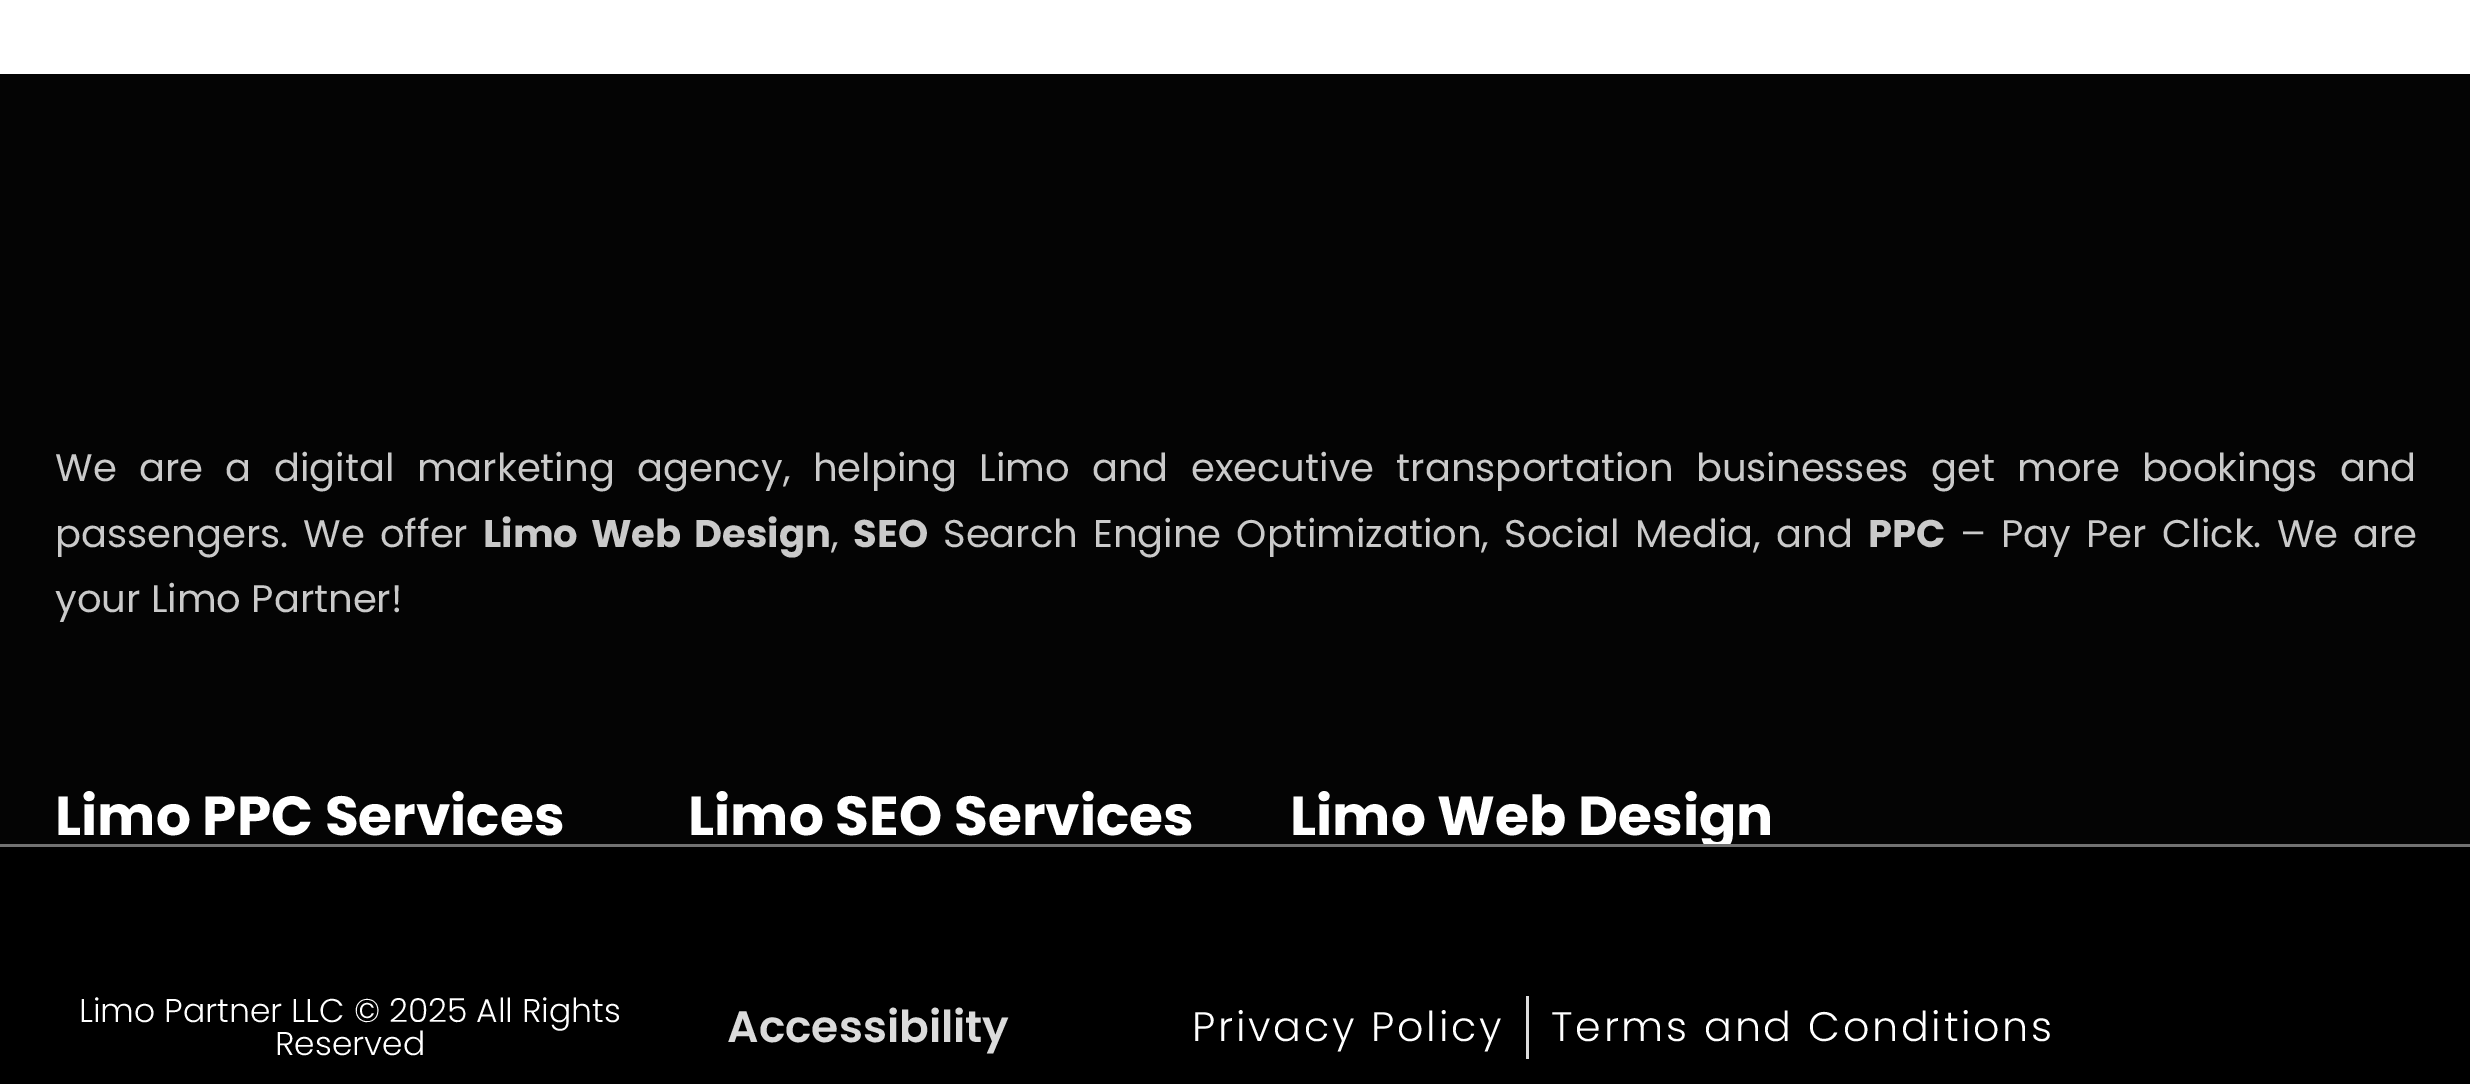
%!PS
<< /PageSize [2470 1084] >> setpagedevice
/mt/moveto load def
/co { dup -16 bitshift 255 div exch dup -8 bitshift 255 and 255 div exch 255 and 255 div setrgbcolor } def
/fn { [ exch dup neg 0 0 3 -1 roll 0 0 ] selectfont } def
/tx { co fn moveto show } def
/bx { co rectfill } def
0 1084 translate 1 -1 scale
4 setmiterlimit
0 0 2470 1084 16#FFFFFF bx
0 74 2470 770 16#040404 bx
/Poppins-Regular 38.5 fn
16#CACACA co
55 481 mt 12.1 0 32 (We are a digital marketing agency, helping Limo and executive transportation businesses get more bookings and) widthshow
55 547 mt 4.75 0 32 (passengers. We offer) widthshow
/Poppins-Bold 38.5 fn
483 547 mt 4.75 0 32 (Limo Web Design) widthshow
(,) 831 547 /Poppins-Regular 38.5 16#CACACA tx
(SEO) 853 547 /Poppins-Bold 38.5 16#CACACA tx
/Poppins-Regular 38.5 fn
943 547 mt 4.75 0 32 (Search Engine Optimization, Social Media, and) widthshow
(PPC) 1868 547 /Poppins-Bold 38.5 16#CACACA tx
/Poppins-Regular 38.5 fn
1960 547 mt 4.75 0 32 (– Pay Per Click. We are) widthshow
(your Limo Partner!) 55 612 /Poppins-Regular 38.5 16#CACACA tx
(Limo PPC Services) 55 835 /Poppins-Bold 55 16#FFFFFF tx
(Limo SEO Services) 688 835 /Poppins-Bold 55 16#FFFFFF tx
(Limo Web Design) 1290 835 /Poppins-Bold 55 16#FFFFFF tx
0 847 2470 237 16#000000 bx
0 844 2470 3 16#727272 bx
(Limo Partner LLC © 2025 All Rights) 79 1022 /Poppins-Light 33 16#FFFFFF tx
(Reserved) 275 1055 /Poppins-Light 33 16#FFFFFF tx
(Accessibility) 727 1042 /Poppins-SemiBold 44 16#DBDBDB tx
/Poppins-Light 41.25 fn
16#FFFFFF co
1192 1041 mt 2.75 0 (Privacy Policy) ashow
1526 996 3 63 16#DDDDDD bx
16#FFFFFF co
1551 1041 mt 2.75 0 (Terms and Conditions) ashow
showpage
